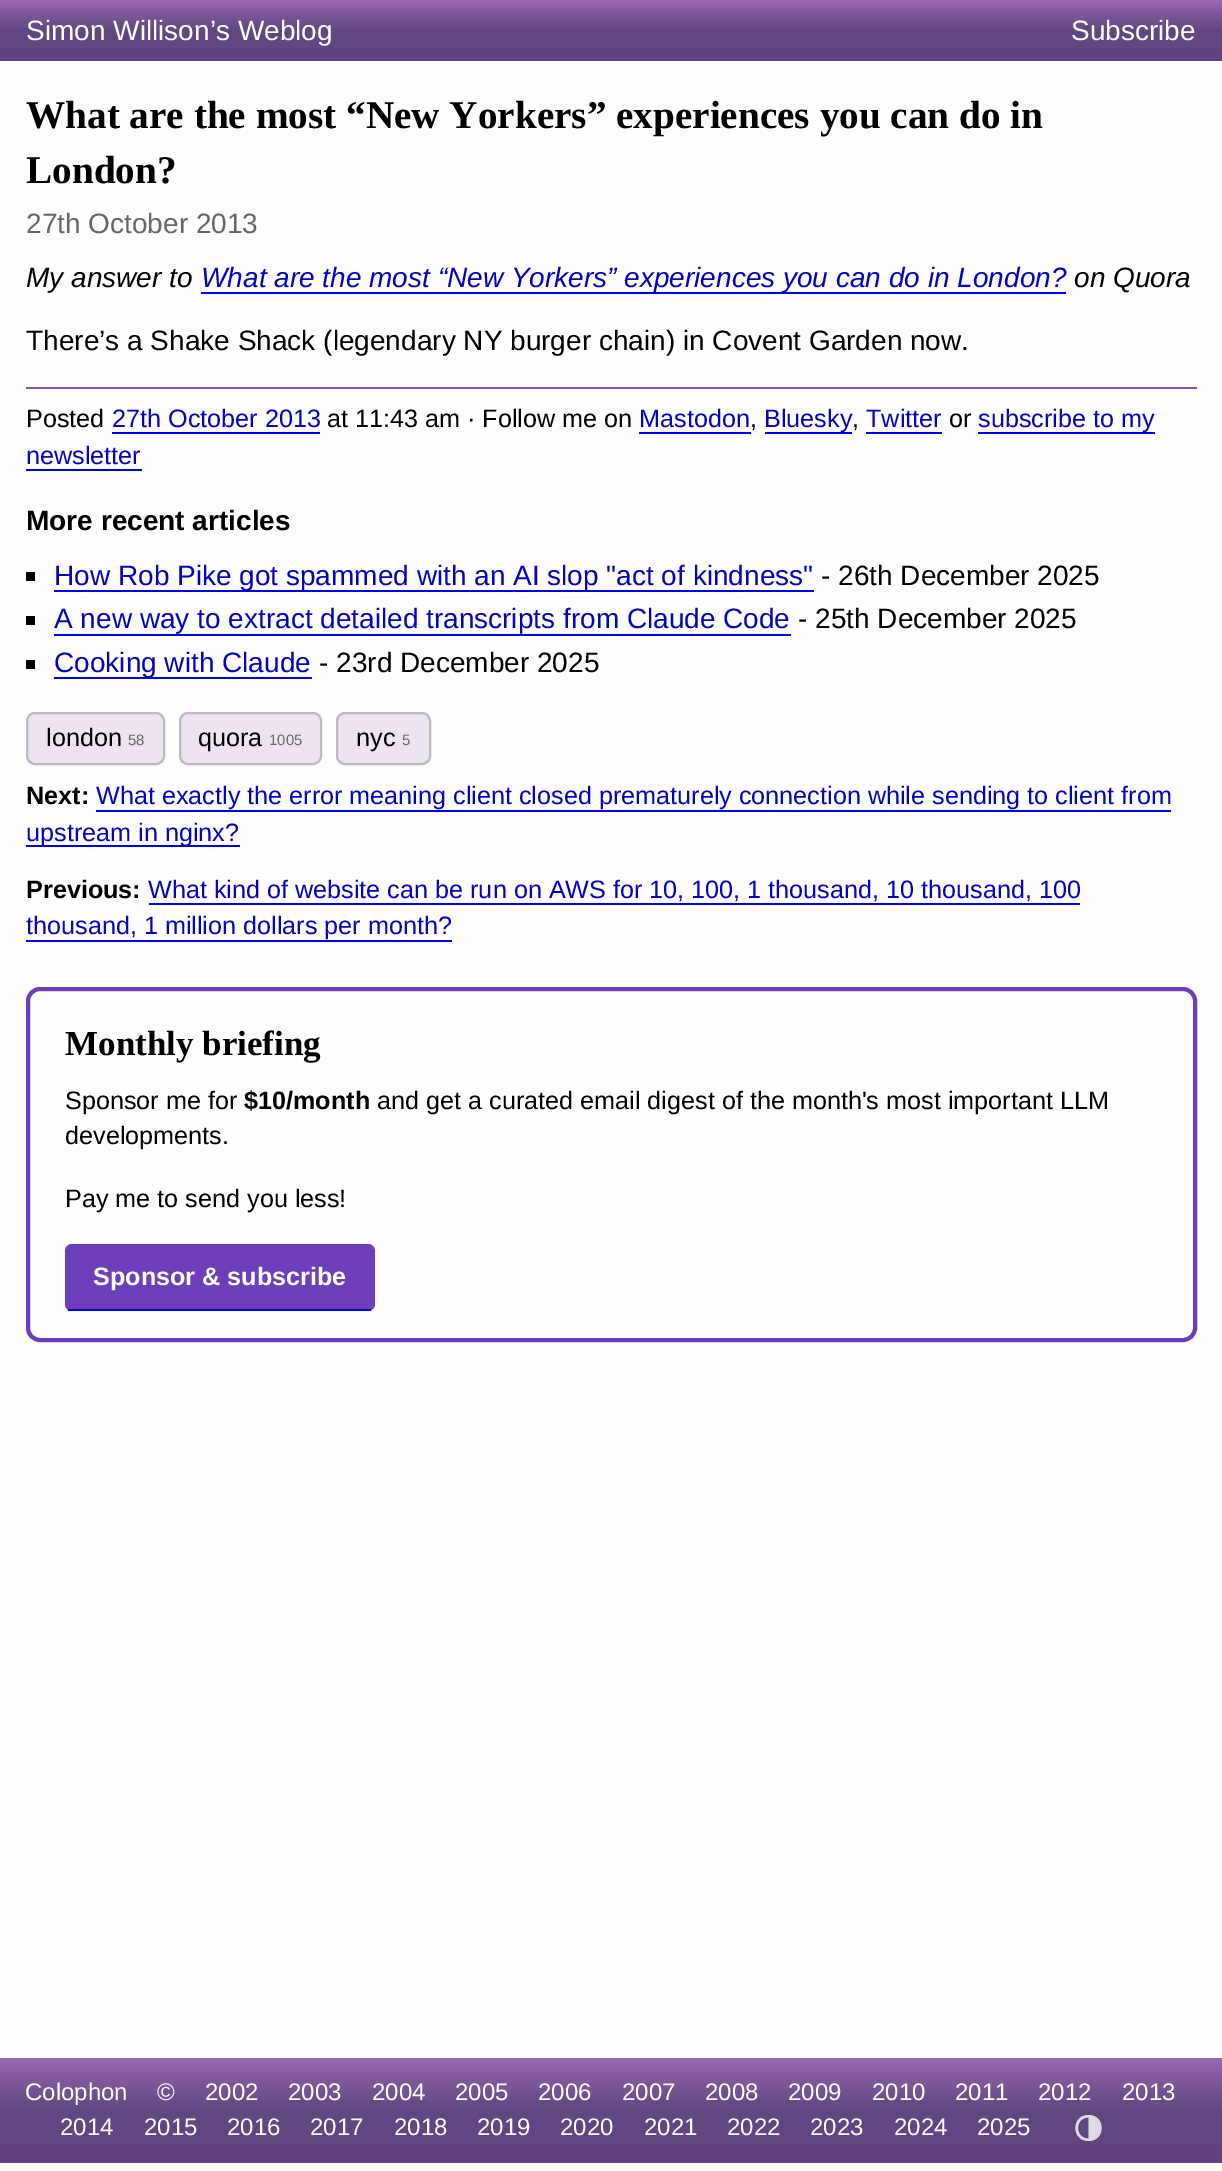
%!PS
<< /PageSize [1222 2171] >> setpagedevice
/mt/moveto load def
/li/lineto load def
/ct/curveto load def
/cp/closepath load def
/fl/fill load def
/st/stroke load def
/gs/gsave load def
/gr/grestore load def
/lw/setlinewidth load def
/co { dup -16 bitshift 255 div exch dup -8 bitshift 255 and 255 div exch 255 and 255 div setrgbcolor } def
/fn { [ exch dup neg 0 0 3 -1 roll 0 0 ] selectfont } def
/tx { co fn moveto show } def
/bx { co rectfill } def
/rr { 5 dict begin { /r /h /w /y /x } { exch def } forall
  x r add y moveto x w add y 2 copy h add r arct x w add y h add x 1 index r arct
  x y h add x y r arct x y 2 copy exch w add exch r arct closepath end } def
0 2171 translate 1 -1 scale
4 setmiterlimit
0 0 1222 2171 16#FDFDFD bx
gs 0 0 mt 1222 0 li 1222 61 li 0 61 li cp clip newpath
<< /ShadingType 2 /ColorSpace /DeviceRGB /Coords [612 0 612 61] /Extend [true true] /Function << /FunctionType 3 /Domain [0 1] /Functions [<< /FunctionType 2 /Domain [0 1] /C0 [.604 .404 .686] /C1 [.376 .282 .506] /N 1 >> << /FunctionType 2 /Domain [0 1] /C0 [.376 .282 .506] /C1 [.392 .263 .51] /N 1 >>] /Bounds [.49] /Encode [0 1 0 1] >> >> shfill gr
201 292 865 2 16#0000EE bx
26 387 1171 2 16#8A55A8 bx
112 432 208 2 16#0000EE bx
639 432 112 2 16#0000EE bx
765 432 87 2 16#0000EE bx
866 432 76 2 16#0000EE bx
978 432 177 2 16#0000EE bx
26 469 116 2 16#0000EE bx
26 572 9 9 16#000000 bx
54 590 760 2 16#0000EE bx
26 616 9 9 16#000000 bx
54 634 737 2 16#0000EE bx
26 660 9 9 16#000000 bx
54 677 258 2 16#0000EE bx
16#EDE3F1 co
27 713 137 51 8 rr gs fl gr
16#BBBBBB co
2 lw
st
16#EDE3F1 co
180 713 141 51 8 rr gs fl gr
16#BBBBBB co
st
16#EDE3F1 co
337 713 93 51 8 rr gs fl gr
16#BBBBBB co
st
96 810 1075 2 16#0000EE bx
26 845 214 2 16#0000EE bx
149 903 931 2 16#0000EE bx
26 940 426 2 16#0000EE bx
16#6C3EB9 co
4 lw
28 989 1167 351 12 rr st
65 1244 310 67 7 rr fl
68 1309 303 2 16#0000EE bx
gs 0 2058 mt 1222 2058 li 1222 2163 li 0 2163 li cp clip newpath
<< /ShadingType 2 /ColorSpace /DeviceRGB /Coords [612 2058 612 2163] /Extend [true true] /Function << /FunctionType 3 /Domain [0 1] /Functions [<< /FunctionType 2 /Domain [0 1] /C0 [.604 .404 .686] /C1 [.376 .282 .506] /N 1 >> << /FunctionType 2 /Domain [0 1] /C0 [.376 .282 .506] /C1 [.392 .263 .51] /N 1 >>] /Bounds [.49] /Encode [0 1 0 1] >> >> shfill gr
16#DFDAE6 co
1088.5 2141 mt 1071 2141 1071 2115 1088.5 2115 ct 1106 2115 1106 2141 1088.5 2141 ct cp 1088.5 2138.5 mt 1088.5 2117.5 li 1074.5 2117.5 1074.5 2138.5 1088.5 2138.5 ct cp fl
(Simon Willison’s Weblog) 26 40 /LiberationSans-Regular 28 16#FFFFFF tx
(Subscribe) 1071 40 /LiberationSans-Regular 28 16#FFFFFF tx
(What are the most “New Yorkers” experiences you can do in) 26 128 /LiberationSerif-Bold 39.2 16#000000 tx
(London?) 26 183 /LiberationSerif-Bold 39.2 16#000000 tx
(27th October 2013) 26 233 /LiberationSans-Regular 28 16#666666 tx
(My answer to) 26 287 /LiberationSans-Italic 28 16#000000 tx
(What are the most “New Yorkers” experiences you can do in London?) 201 287 /LiberationSans-Italic 28 16#0303BB tx
(on Quora) 1074 287 /LiberationSans-Italic 28 16#000000 tx
(There’s a Shake Shack \(legendary NY burger chain\) in Covent Garden now.) 26 350 /LiberationSans-Regular 28 16#000000 tx
(Posted) 26 427 /LiberationSans-Regular 25.2 16#000000 tx
(27th October 2013) 112 427 /LiberationSans-Regular 25.2 16#0303BB tx
(at 11:43 am · Follow me on) 327 427 /LiberationSans-Regular 25.2 16#000000 tx
(Mastodon) 639 427 /LiberationSans-Regular 25.2 16#0303BB tx
(,) 750 427 /LiberationSans-Regular 25.2 16#000000 tx
(Bluesky) 764 427 /LiberationSans-Regular 25.2 16#0303BB tx
(,) 852 427 /LiberationSans-Regular 25.2 16#000000 tx
(Twitter) 866 427 /LiberationSans-Regular 25.2 16#0303BB tx
(or) 949 427 /LiberationSans-Regular 25.2 16#000000 tx
(subscribe to my) 978 427 /LiberationSans-Regular 25.2 16#0303BB tx
(newsletter) 26 464 /LiberationSans-Regular 25.2 16#0303BB tx
(More recent articles) 26 530 /LiberationSans-Bold 28 16#000000 tx
(How Rob Pike got spammed with an AI slop "act of kindness") 54 585 /LiberationSans-Regular 28 16#0303BB tx
(- 26th December 2025) 821 585 /LiberationSans-Regular 28 16#000000 tx
(A new way to extract detailed transcripts from Claude Code) 54 628 /LiberationSans-Regular 28 16#0303BB tx
(- 25th December 2025) 798 628 /LiberationSans-Regular 28 16#000000 tx
(Cooking with Claude) 54 672 /LiberationSans-Regular 28 16#0303BB tx
(- 23rd December 2025) 319 672 /LiberationSans-Regular 28 16#000000 tx
(london) 46 746 /LiberationSans-Regular 25.2 16#000000 tx
(58) 128 745 /LiberationSans-Regular 15 16#666666 tx
(quora) 198 746 /LiberationSans-Regular 25.2 16#000000 tx
(1005) 269 745 /LiberationSans-Regular 15 16#666666 tx
(nyc) 356 746 /LiberationSans-Regular 25.2 16#000000 tx
(5) 402 745 /LiberationSans-Regular 15 16#666666 tx
(Next:) 26 804 /LiberationSans-Bold 25.2 16#000000 tx
(What exactly the error meaning client closed prematurely connection while sending to client from) 96 804 /LiberationSans-Regular 25.2 16#0303BB tx
(upstream in nginx?) 26 841 /LiberationSans-Regular 25.2 16#0303BB tx
(Previous:) 26 898 /LiberationSans-Bold 25.2 16#000000 tx
(What kind of website can be run on AWS for 10, 100, 1 thousand, 10 thousand, 100) 148 898 /LiberationSans-Regular 25.2 16#0303BB tx
(thousand, 1 million dollars per month?) 26 934 /LiberationSans-Regular 25.2 16#0303BB tx
(Monthly briefing) 65 1055 /LiberationSerif-Bold 35 16#000000 tx
(Sponsor me for) 65 1109 /LiberationSans-Regular 25.2 16#000000 tx
($10/month) 244 1109 /LiberationSans-Bold 25.2 16#000000 tx
(and get a curated email digest of the month's most important LLM) 377 1109 /LiberationSans-Regular 25.2 16#000000 tx
(developments.) 65 1144 /LiberationSans-Regular 25.2 16#000000 tx
(Pay me to send you less!) 65 1207 /LiberationSans-Regular 25.2 16#000000 tx
(Sponsor & subscribe) 93 1285 /LiberationSans-Bold 25.2 16#FFFFFF tx
(Colophon) 25 2100 /LiberationSans-Regular 24 16#FFFFFF tx
(©) 157 2100 /LiberationSans-Regular 24 16#FFFFFF tx
(2002) 205 2100 /LiberationSans-Regular 24 16#FFFFFF tx
(2003) 288 2100 /LiberationSans-Regular 24 16#FFFFFF tx
(2004) 372 2100 /LiberationSans-Regular 24 16#FFFFFF tx
(2005) 455 2100 /LiberationSans-Regular 24 16#FFFFFF tx
(2006) 538 2100 /LiberationSans-Regular 24 16#FFFFFF tx
(2007) 622 2100 /LiberationSans-Regular 24 16#FFFFFF tx
(2008) 705 2100 /LiberationSans-Regular 24 16#FFFFFF tx
(2009) 788 2100 /LiberationSans-Regular 24 16#FFFFFF tx
(2010) 872 2100 /LiberationSans-Regular 24 16#FFFFFF tx
(2011) 955 2100 /LiberationSans-Regular 24 16#FFFFFF tx
(2012) 1038 2100 /LiberationSans-Regular 24 16#FFFFFF tx
(2013) 1122 2100 /LiberationSans-Regular 24 16#FFFFFF tx
(2014) 60 2135 /LiberationSans-Regular 24 16#FFFFFF tx
(2015) 144 2135 /LiberationSans-Regular 24 16#FFFFFF tx
(2016) 227 2135 /LiberationSans-Regular 24 16#FFFFFF tx
(2017) 310 2135 /LiberationSans-Regular 24 16#FFFFFF tx
(2018) 394 2135 /LiberationSans-Regular 24 16#FFFFFF tx
(2019) 477 2135 /LiberationSans-Regular 24 16#FFFFFF tx
(2020) 560 2135 /LiberationSans-Regular 24 16#FFFFFF tx
(2021) 644 2135 /LiberationSans-Regular 24 16#FFFFFF tx
(2022) 727 2135 /LiberationSans-Regular 24 16#FFFFFF tx
(2023) 810 2135 /LiberationSans-Regular 24 16#FFFFFF tx
(2024) 894 2135 /LiberationSans-Regular 24 16#FFFFFF tx
(2025) 977 2135 /LiberationSans-Regular 24 16#FFFFFF tx
showpage
